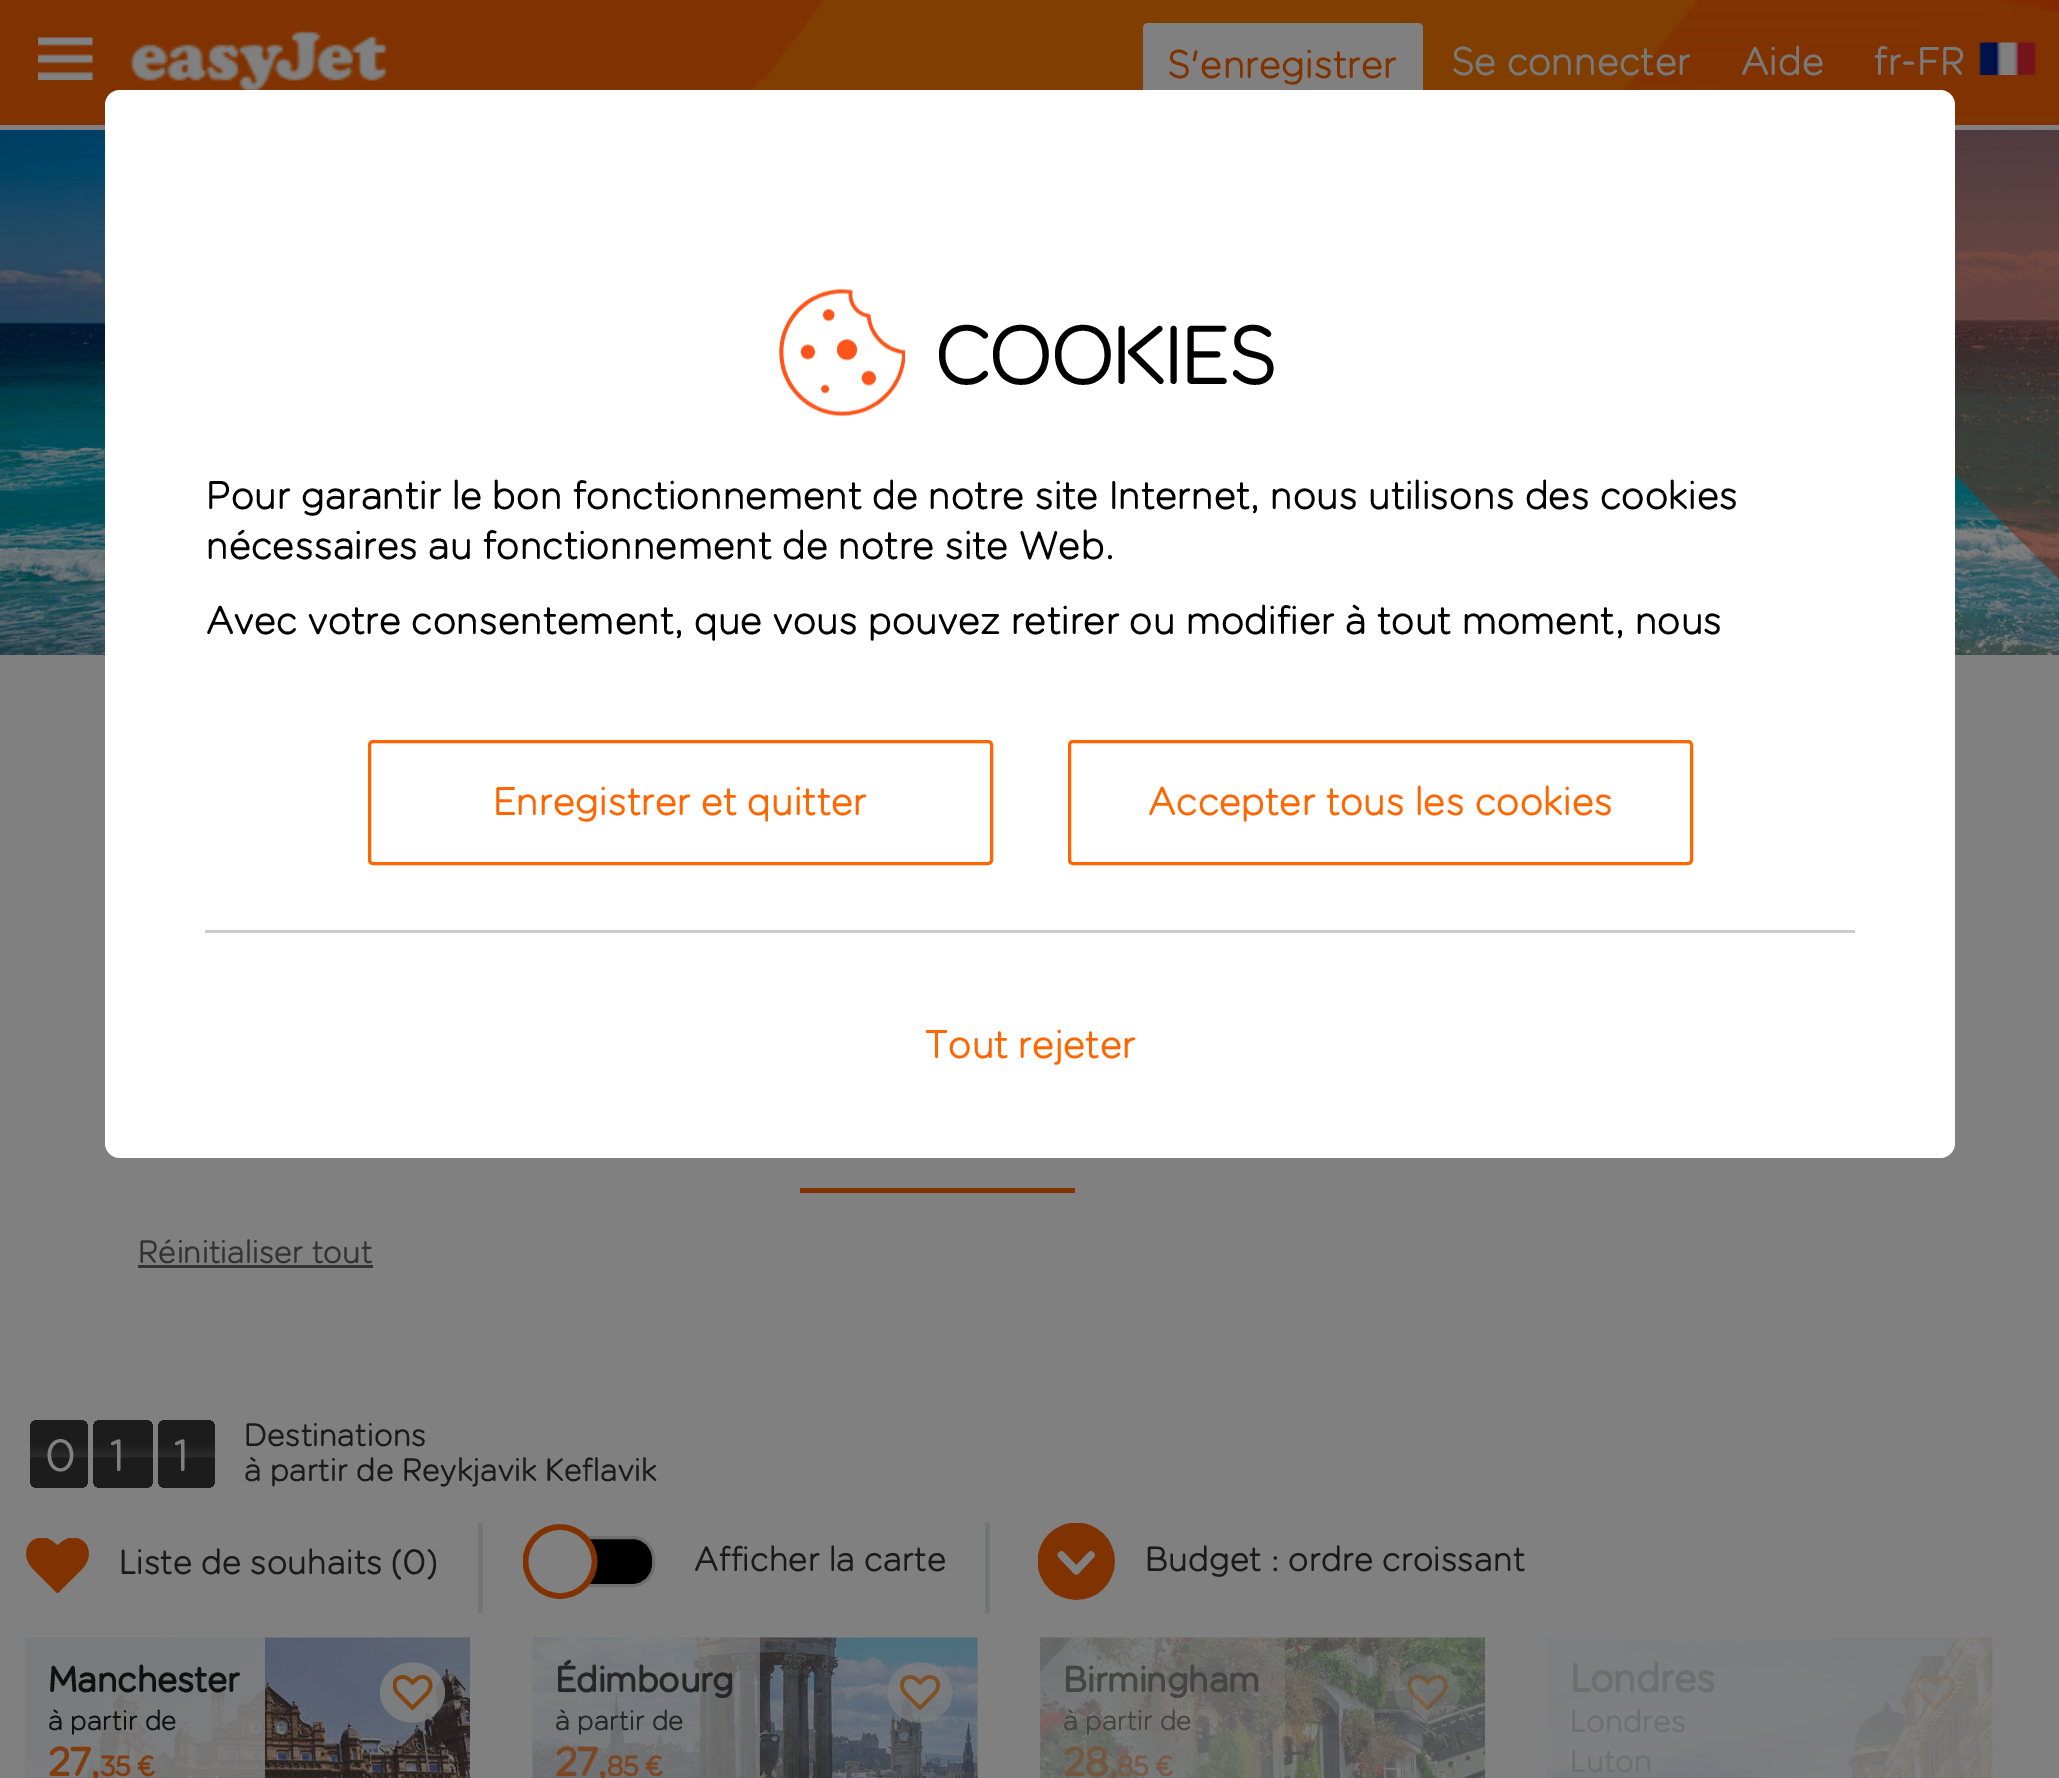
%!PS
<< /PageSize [2059 1778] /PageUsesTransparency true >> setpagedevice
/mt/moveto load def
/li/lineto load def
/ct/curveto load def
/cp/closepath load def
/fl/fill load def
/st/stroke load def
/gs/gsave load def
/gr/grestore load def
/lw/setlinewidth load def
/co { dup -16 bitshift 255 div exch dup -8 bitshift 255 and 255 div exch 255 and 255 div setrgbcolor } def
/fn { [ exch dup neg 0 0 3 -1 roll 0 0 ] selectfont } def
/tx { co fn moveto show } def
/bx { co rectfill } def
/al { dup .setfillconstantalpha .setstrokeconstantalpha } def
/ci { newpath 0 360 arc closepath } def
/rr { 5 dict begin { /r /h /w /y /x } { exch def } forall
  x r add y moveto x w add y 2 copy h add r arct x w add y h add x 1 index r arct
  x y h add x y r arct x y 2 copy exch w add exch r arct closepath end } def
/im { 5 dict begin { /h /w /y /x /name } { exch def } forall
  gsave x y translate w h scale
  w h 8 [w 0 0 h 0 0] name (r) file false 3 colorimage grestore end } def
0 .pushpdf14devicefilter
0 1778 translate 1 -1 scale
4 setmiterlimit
0 0 2059 1778 16#808080 bx
0 0 727 125 16#803300 bx
(media/1.raw) 727 0 1332 125 im
(media/2.raw) 38 37 55 43 im
(media/3.raw) 129 30 259 60 im
16#808080 co
1143 23 280 80 5 rr fl
(media/4.raw) 1979 42 57 33 im
(media/5.raw) 0 130 2059 525 im
0.5 al
16#74250F co
1610 130 mt 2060 130 li 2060 580 li cp fl
1 al
800 1188 275 5 16#803300 bx
138 1265 235 3 16#333333 bx
gs 30 1420 58 68 8 rr clip newpath
<< /ShadingType 2 /ColorSpace /DeviceRGB /Coords [59 1420 59 1488] /Extend [true true] /Function << /FunctionType 3 /Domain [0 1] /Functions [<< /FunctionType 2 /Domain [0 1] /C0 [.11 .11 .114] /C1 [.11 .11 .114] /N 1 >> << /FunctionType 2 /Domain [0 1] /C0 [.11 .11 .114] /C1 [.173 .173 .176] /N 1 >> << /FunctionType 2 /Domain [0 1] /C0 [.11 .11 .114] /C1 [.11 .11 .114] /N 1 >>] /Bounds [.35 .55] /Encode [0 1 0 1 0 1] >> >> shfill gr
gs 93 1420 60 68 8 rr clip newpath
<< /ShadingType 2 /ColorSpace /DeviceRGB /Coords [123 1420 123 1488] /Extend [true true] /Function << /FunctionType 3 /Domain [0 1] /Functions [<< /FunctionType 2 /Domain [0 1] /C0 [.11 .11 .114] /C1 [.11 .11 .114] /N 1 >> << /FunctionType 2 /Domain [0 1] /C0 [.11 .11 .114] /C1 [.173 .173 .176] /N 1 >> << /FunctionType 2 /Domain [0 1] /C0 [.11 .11 .114] /C1 [.11 .11 .114] /N 1 >>] /Bounds [.35 .55] /Encode [0 1 0 1 0 1] >> >> shfill gr
gs 158 1420 57 68 8 rr clip newpath
<< /ShadingType 2 /ColorSpace /DeviceRGB /Coords [186 1420 186 1488] /Extend [true true] /Function << /FunctionType 3 /Domain [0 1] /Functions [<< /FunctionType 2 /Domain [0 1] /C0 [.11 .11 .114] /C1 [.11 .11 .114] /N 1 >> << /FunctionType 2 /Domain [0 1] /C0 [.11 .11 .114] /C1 [.173 .173 .176] /N 1 >> << /FunctionType 2 /Domain [0 1] /C0 [.11 .11 .114] /C1 [.11 .11 .114] /N 1 >>] /Bounds [.35 .55] /Encode [0 1 0 1 0 1] >> >> shfill gr
(media/6.raw) 26 1538 63 55 im
478 1523 5 90 16#737475 bx
16#000000 co
525.5 1537.5 128 48 20.5 rr gs fl gr
16#6E6E6E co
3 lw
st
16#808080 co
560 1561.5 34.5 ci fl
gs
523 1523 162 80 rectclip
16#803300 co
5.6 lw
560 1561.5 34.5 ci st
gr
985 1523 5 90 16#737475 bx
(media/7.raw) 1038 1523 77 77 im
(media/8.raw) 25 1637 445 141 im
0.87 al
25 1637 240 141 16#808080 bx
412.5 1662.5 mt 430.5 1662.5 445 1676 445 1692.5 ct 445 1709 430.5 1722.5 412.5 1722.5 ct 394.5 1722.5 380 1709 380 1692.5 ct 380 1676 394.5 1662.5 412.5 1662.5 ct cp fl
1 al
(media/9.raw) 393 1675 40 35 im
(media/10.raw) 532 1637 446 141 im
0.68 al
532 1637 228 141 16#808080 bx
920 1662.5 mt 938 1662.5 952.5 1676 952.5 1692.5 ct 952.5 1709 938 1722.5 920 1722.5 ct 902 1722.5 887.5 1709 887.5 1692.5 ct 887.5 1676 902 1662.5 920 1662.5 ct cp fl
1 al
(media/11.raw) 900 1675 40 35 im
(media/12.raw) 1040 1637 445 141 im
0.39 al
1040 1637 245 141 16#808080 bx
1427.5 1662.5 mt 1445.5 1662.5 1460 1676 1460 1692.5 ct 1460 1709 1445.5 1722.5 1427.5 1722.5 ct 1409.5 1722.5 1395 1709 1395 1692.5 ct 1395 1676 1409.5 1662.5 1427.5 1662.5 ct cp fl
1 al
(media/13.raw) 1408 1675 40 35 im
(media/14.raw) 1547 1637 446 141 im
(media/15.raw) 1915 1675 40 35 im
16#FFFFFF co
105 90 1850 1068 15 rr fl
(media/16.raw) 779 289 126 127 im
16#FF6600 co
369.5 741.5 622 122 3.5 rr st
1069.5 741.5 622 122 3.5 rr st
205 930 1650 3 16#CCCCCC bx
(S'enregistrer) 1168 78 /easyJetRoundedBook-Regular 40 16#803300 tx
(Se connecter) 1452 75 /easyJetRoundedBook-Regular 40 16#797979 tx
(Aide) 1741 75 /easyJetRoundedBook-Regular 40 16#797979 tx
(fr-FR) 1874 75 /easyJetRoundedBook-Regular 40 16#797979 tx
(Réinitialiser tout) 138 1263 /easyJetRoundedBook-Regular 32.5 16#333333 tx
(0) 46 1471 /easyJetRoundedBook-Regular 45 16#808080 tx
(1) 110 1471 /easyJetRoundedBook-Regular 45 16#808080 tx
(1) 174 1471 /easyJetRoundedBook-Regular 45 16#808080 tx
(Destinations) 244 1446 /easyJetRoundedBook-Regular 32.5 16#1A1A1A tx
(à partir de Reykjavik Keflavik) 244 1481 /easyJetRoundedBook-Regular 32.5 16#1A1A1A tx
(Liste de souhaits \(0\)) 119 1574 /easyJetRoundedBook-Regular 35 16#1A1A1A tx
(Afficher la carte) 694 1571 /easyJetRoundedBook-Regular 35 16#1A1A1A tx
(Budget : ordre croissant) 1145 1571 /easyJetRoundedBook-Regular 35 16#1A1A1A tx
(Manchester) 48 1692 /easyJetRoundedBook-Bold 36 16#101010 tx
(à partir de) 48 1730 /easyJetRoundedBook-Regular 28 16#101010 tx
(27,) 48 1776 /easyJetRoundedBook-Bold 40 16#7F3D10 tx
(35 €) 100 1776 /easyJetRoundedBook-Bold 28 16#7F3D10 tx
(Édimbourg) 555 1692 /easyJetRoundedBook-Bold 36 16#262627 tx
(à partir de) 555 1730 /easyJetRoundedBook-Regular 28 16#262627 tx
(27,) 555 1776 /easyJetRoundedBook-Bold 40 16#7B4725 tx
(85 €) 607 1776 /easyJetRoundedBook-Bold 28 16#7B4725 tx
(Birmingham) 1063 1692 /easyJetRoundedBook-Bold 36 16#454544 tx
(à partir de) 1063 1730 /easyJetRoundedBook-Regular 28 16#454544 tx
(28,) 1063 1776 /easyJetRoundedBook-Bold 40 16#73573F tx
(85 €) 1117 1776 /easyJetRoundedBook-Bold 28 16#785A46 tx
(Londres) 1570 1692 /easyJetRoundedBook-Bold 40 16#6C6F6F tx
(Londres) 1570 1732 /easyJetRoundedBook-Regular 32 16#6C6F6F tx
(Luton) 1570 1772 /easyJetRoundedBook-Regular 32 16#6C6F6F tx
(COOKIES) 935 384 /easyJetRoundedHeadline-Bold 80 16#000000 tx
(Pour garantir le bon fonctionnement de notre site Internet, nous utilisons des cookies) 206 509 /easyJetRoundedBook-Regular 40 16#000000 tx
(nécessaires au fonctionnement de notre site Web.) 206 559 /easyJetRoundedBook-Regular 40 16#000000 tx
(Avec votre consentement, que vous pouvez retirer ou modifier à tout moment, nous) 206 634 /easyJetRoundedBook-Regular 40 16#000000 tx
(Enregistrer et quitter) 493 815 /easyJetRoundedBook-Regular 40 16#FF6600 tx
(Accepter tous les cookies) 1148 815 /easyJetRoundedBook-Regular 40 16#FF6600 tx
(Tout rejeter) 925 1058 /easyJetRoundedBook-Regular 40 16#FF6600 tx
.poppdf14devicefilter showpage
